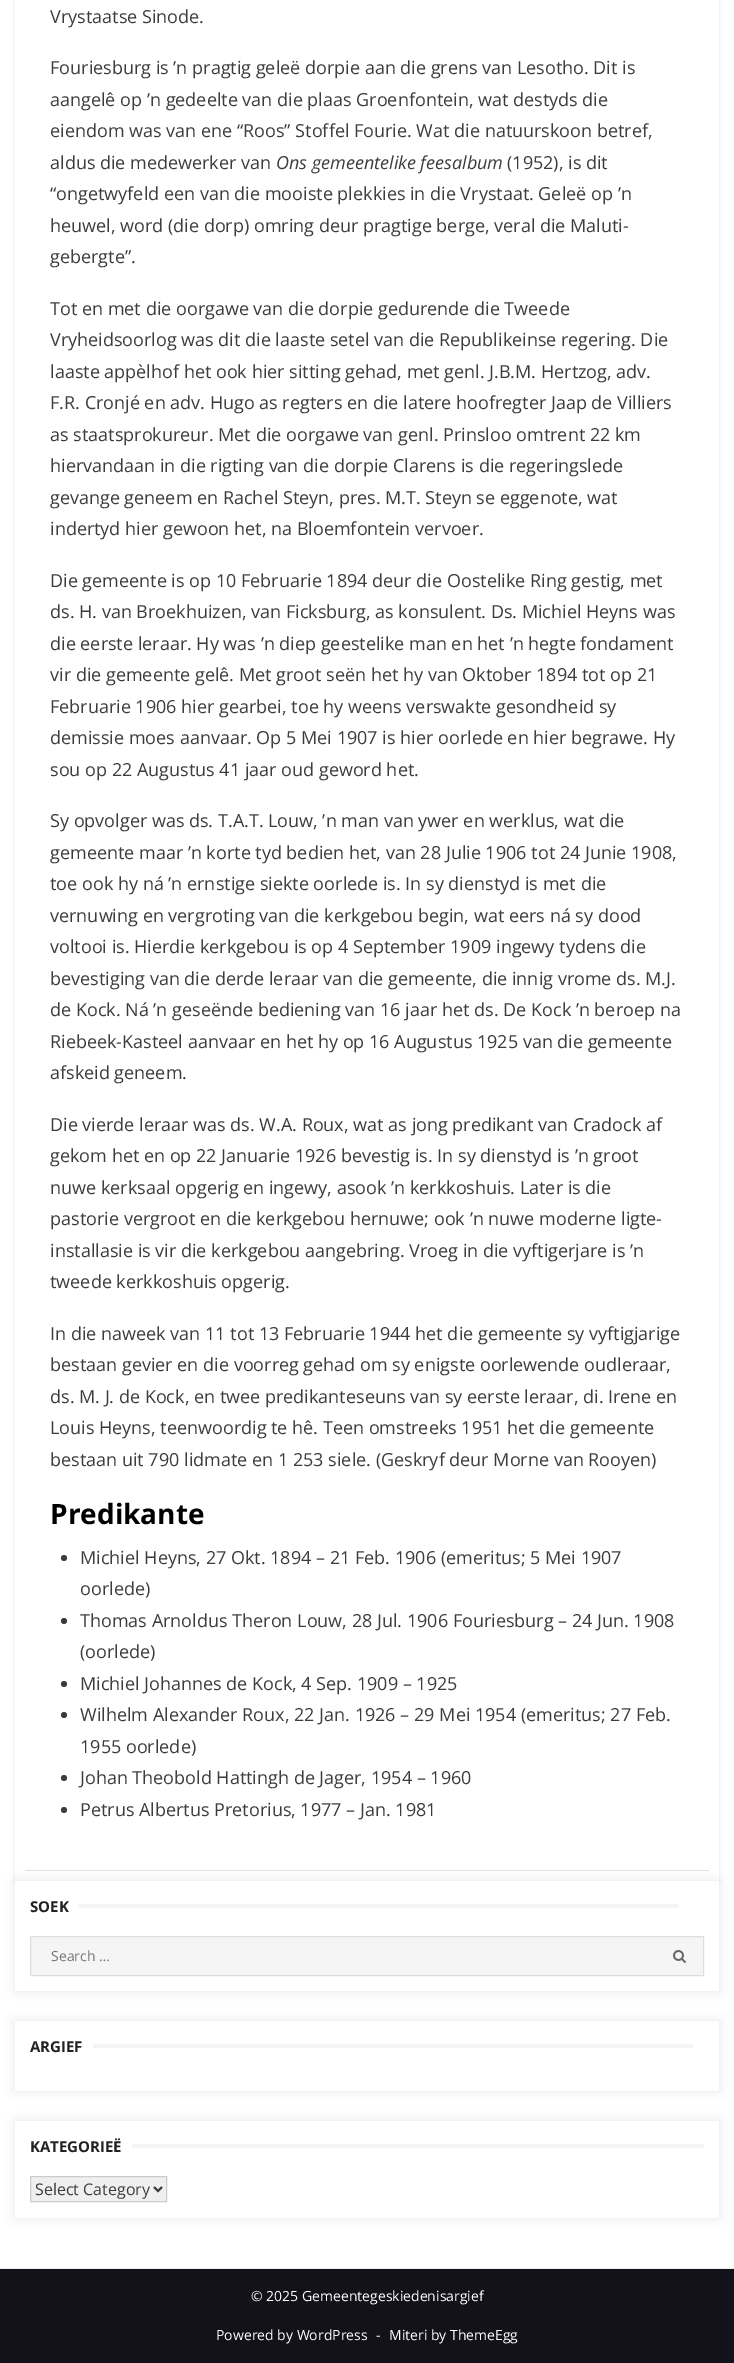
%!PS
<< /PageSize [734 2363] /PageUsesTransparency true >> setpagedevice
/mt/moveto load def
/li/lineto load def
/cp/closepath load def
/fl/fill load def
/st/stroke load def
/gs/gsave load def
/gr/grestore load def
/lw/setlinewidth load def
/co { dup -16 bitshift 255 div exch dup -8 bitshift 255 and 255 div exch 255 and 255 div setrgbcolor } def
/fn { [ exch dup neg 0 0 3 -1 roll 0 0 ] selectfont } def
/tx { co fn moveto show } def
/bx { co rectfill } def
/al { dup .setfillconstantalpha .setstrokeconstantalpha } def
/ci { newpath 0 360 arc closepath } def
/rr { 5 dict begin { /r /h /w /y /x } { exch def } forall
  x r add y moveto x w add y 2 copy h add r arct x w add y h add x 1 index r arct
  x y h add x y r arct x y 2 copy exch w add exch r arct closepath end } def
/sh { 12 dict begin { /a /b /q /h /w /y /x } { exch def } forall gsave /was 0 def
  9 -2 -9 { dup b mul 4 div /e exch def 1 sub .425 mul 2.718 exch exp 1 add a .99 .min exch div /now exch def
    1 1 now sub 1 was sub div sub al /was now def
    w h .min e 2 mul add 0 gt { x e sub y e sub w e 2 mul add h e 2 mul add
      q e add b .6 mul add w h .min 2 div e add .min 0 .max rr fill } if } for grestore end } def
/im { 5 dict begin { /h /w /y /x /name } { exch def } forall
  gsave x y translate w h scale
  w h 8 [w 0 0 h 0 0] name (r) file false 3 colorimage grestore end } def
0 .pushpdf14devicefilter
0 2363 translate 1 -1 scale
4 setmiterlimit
0 0 734 2363 16#FFFFFF bx
gs
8 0 mt 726 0 li 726 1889 li 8 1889 li cp 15 -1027 mt 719 -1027 li 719 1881 li 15 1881 li cp eoclip newpath
16#000000 co
15 -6 704 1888 0 2 .1 sh
gr
25 1870 684 1 16#E2E2E2 bx
16#3C3C3C co
64 1558 3 ci fl
64 1621 3 ci fl
64 1684 3 ci fl
64 1715 3 ci fl
64 1778 3 ci fl
64 1810 3 ci fl
16#000000 co
15 1881 704 110 0 5 .1 sh
15 1881 704 110 16#FFFFFF bx
79 1904 600 4 16#F5F5F5 bx
30.5 1936.5 mt 703.5 1936.5 li 703.5 1975.5 li 30.5 1975.5 li cp gs fl gr
16#DDDDDD co
st
(media/1.raw) 673 1950 13 13 im
gs
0 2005 mt 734 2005 li 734 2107 li 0 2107 li cp 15 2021 mt 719 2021 li 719 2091 li 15 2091 li cp eoclip newpath
16#000000 co
15 2021 704 70 0 5 .1 sh
gr
93 2044 600 4 16#F5F5F5 bx
gs
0 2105 mt 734 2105 li 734 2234 li 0 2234 li cp 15 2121 mt 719 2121 li 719 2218 li 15 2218 li cp eoclip newpath
16#000000 co
15 2121 704 97 0 5 .1 sh
gr
132 2144 572 4 16#F5F5F5 bx
16#EFEFEF co
30.5 2176.5 mt 166.5 2176.5 li 166.5 2201.5 li 30.5 2201.5 li cp gs fl gr
16#CCCCCC co
st
16#3C3C3C co
2 lw
154 2187 mt 158 2191 li 162 2187 li st
0 2269 734 94 16#131119 bx
0 2268 734 1 16#EEEEEE bx
(Vrystaatse Sinode.) 50 23 /OpenSans-Regular 18 16#3C3C3C tx
(Fouriesburg is ’n pragtig geleë dorpie aan die grens van Lesotho. Dit is) 50 74 /OpenSans-Regular 18 16#3C3C3C tx
(aangelê op ’n gedeelte van die plaas Groenfontein, wat destyds die) 50 106 /OpenSans-Regular 18 16#3C3C3C tx
(eiendom was van ene “Roos” Stoffel Fourie. Wat die natuurskoon betref,) 50 137 /OpenSans-Regular 18 16#3C3C3C tx
(aldus die medewerker van) 50 169 /OpenSans-Regular 18 16#3C3C3C tx
(Ons gemeentelike feesalbum) 276 169 /OpenSans-Italic 18 16#3C3C3C tx
(\(1952\), is dit) 507 169 /OpenSans-Regular 18 16#3C3C3C tx
(“ongetwyfeld een van die mooiste plekkies in die Vrystaat. Geleë op ’n) 50 200 /OpenSans-Regular 18 16#3C3C3C tx
(heuwel, word \(die dorp\) omring deur pragtige berge, veral die Maluti-) 50 232 /OpenSans-Regular 18 16#3C3C3C tx
(gebergte”.) 50 263 /OpenSans-Regular 18 16#3C3C3C tx
(Tot en met die oorgawe van die dorpie gedurende die Tweede) 50 315 /OpenSans-Regular 18 16#3C3C3C tx
(Vryheidsoorlog was dit die laaste setel van die Republikeinse regering. Die) 50 346 /OpenSans-Regular 18 16#3C3C3C tx
(laaste appèlhof het ook hier sitting gehad, met genl. J.B.M. Hertzog, adv.) 50 378 /OpenSans-Regular 18 16#3C3C3C tx
(F.R. Cronjé en adv. Hugo as regters en die latere hoofregter Jaap de Villiers) 50 409 /OpenSans-Regular 18 16#3C3C3C tx
(as staatsprokureur. Met die oorgawe van genl. Prinsloo omtrent 22 km) 50 441 /OpenSans-Regular 18 16#3C3C3C tx
(hiervandaan in die rigting van die dorpie Clarens is die regeringslede) 50 472 /OpenSans-Regular 18 16#3C3C3C tx
(gevange geneem en Rachel Steyn, pres. M.T. Steyn se eggenote, wat) 50 504 /OpenSans-Regular 18 16#3C3C3C tx
(indertyd hier gewoon het, na Bloemfontein vervoer.) 50 535 /OpenSans-Regular 18 16#3C3C3C tx
(Die gemeente is op 10 Februarie 1894 deur die Oostelike Ring gestig, met) 50 587 /OpenSans-Regular 18 16#3C3C3C tx
(ds. H. van Broekhuizen, van Ficksburg, as konsulent. Ds. Michiel Heyns was) 50 618 /OpenSans-Regular 18 16#3C3C3C tx
(die eerste leraar. Hy was ’n diep geestelike man en het ’n hegte fondament) 50 650 /OpenSans-Regular 18 16#3C3C3C tx
(vir die gemeente gelê. Met groot seën het hy van Oktober 1894 tot op 21) 50 681 /OpenSans-Regular 18 16#3C3C3C tx
(Februarie 1906 hier gearbei, toe hy weens verswakte gesondheid sy) 50 713 /OpenSans-Regular 18 16#3C3C3C tx
(demissie moes aanvaar. Op 5 Mei 1907 is hier oorlede en hier begrawe. Hy) 50 744 /OpenSans-Regular 18 16#3C3C3C tx
(sou op 22 Augustus 41 jaar oud geword het.) 50 776 /OpenSans-Regular 18 16#3C3C3C tx
(Sy opvolger was ds. T.A.T. Louw, ’n man van ywer en werklus, wat die) 50 827 /OpenSans-Regular 18 16#3C3C3C tx
(gemeente maar ’n korte tyd bedien het, van 28 Julie 1906 tot 24 Junie 1908,) 50 859 /OpenSans-Regular 18 16#3C3C3C tx
(toe ook hy ná ’n ernstige siekte oorlede is. In sy dienstyd is met die) 50 890 /OpenSans-Regular 18 16#3C3C3C tx
(vernuwing en vergroting van die kerkgebou begin, wat eers ná sy dood) 50 922 /OpenSans-Regular 18 16#3C3C3C tx
(voltooi is. Hierdie kerkgebou is op 4 September 1909 ingewy tydens die) 50 953 /OpenSans-Regular 18 16#3C3C3C tx
(bevestiging van die derde leraar van die gemeente, die innig vrome ds. M.J.) 50 985 /OpenSans-Regular 18 16#3C3C3C tx
(de Kock. Ná ’n geseënde bediening van 16 jaar het ds. De Kock ’n beroep na) 50 1016 /OpenSans-Regular 18 16#3C3C3C tx
(Riebeek-Kasteel aanvaar en het hy op 16 Augustus 1925 van die gemeente) 50 1048 /OpenSans-Regular 18 16#3C3C3C tx
(afskeid geneem.) 50 1079 /OpenSans-Regular 18 16#3C3C3C tx
(Die vierde leraar was ds. W.A. Roux, wat as jong predikant van Cradock af) 50 1131 /OpenSans-Regular 18 16#3C3C3C tx
(gekom het en op 22 Januarie 1926 bevestig is. In sy dienstyd is ’n groot) 50 1162 /OpenSans-Regular 18 16#3C3C3C tx
(nuwe kerksaal opgerig en ingewy, asook ’n kerkkoshuis. Later is die) 50 1194 /OpenSans-Regular 18 16#3C3C3C tx
(pastorie vergroot en die kerkgebou hernuwe; ook ’n nuwe moderne ligte-) 50 1225 /OpenSans-Regular 18 16#3C3C3C tx
(installasie is vir die kerkgebou aangebring. Vroeg in die vyftigerjare is ’n) 50 1257 /OpenSans-Regular 18 16#3C3C3C tx
(tweede kerkkoshuis opgerig.) 50 1288 /OpenSans-Regular 18 16#3C3C3C tx
(In die naweek van 11 tot 13 Februarie 1944 het die gemeente sy vyftigjarige) 50 1340 /OpenSans-Regular 18 16#3C3C3C tx
(bestaan gevier en die voorreg gehad om sy enigste oorlewende oudleraar,) 50 1371 /OpenSans-Regular 18 16#3C3C3C tx
(ds. M. J. de Kock, en twee predikanteseuns van sy eerste leraar, di. Irene en) 50 1403 /OpenSans-Regular 18 16#3C3C3C tx
(Louis Heyns, teenwoordig te hê. Teen omstreeks 1951 het die gemeente) 50 1434 /OpenSans-Regular 18 16#3C3C3C tx
(bestaan uit 790 lidmate en 1 253 siele. \(Geskryf deur Morne van Rooyen\)) 50 1466 /OpenSans-Regular 18 16#3C3C3C tx
(Predikante) 50 1524 /OpenSans-Bold 28 16#000000 tx
(Michiel Heyns, 27 Okt. 1894 – 21 Feb. 1906 \(emeritus; 5 Mei 1907) 80 1564 /OpenSans-Regular 18 16#3C3C3C tx
(oorlede\)) 80 1595 /OpenSans-Regular 18 16#3C3C3C tx
(Thomas Arnoldus Theron Louw, 28 Jul. 1906 Fouriesburg – 24 Jun. 1908) 80 1627 /OpenSans-Regular 18 16#3C3C3C tx
(\(oorlede\)) 80 1658 /OpenSans-Regular 18 16#3C3C3C tx
(Michiel Johannes de Kock, 4 Sep. 1909 – 1925) 80 1690 /OpenSans-Regular 18 16#3C3C3C tx
(Wilhelm Alexander Roux, 22 Jan. 1926 – 29 Mei 1954 \(emeritus; 27 Feb.) 80 1721 /OpenSans-Regular 18 16#3C3C3C tx
(1955 oorlede\)) 80 1753 /OpenSans-Regular 18 16#3C3C3C tx
(Johan Theobold Hattingh de Jager, 1954 – 1960) 80 1784 /OpenSans-Regular 18 16#3C3C3C tx
(Petrus Albertus Pretorius, 1977 – Jan. 1981) 80 1816 /OpenSans-Regular 18 16#3C3C3C tx
(SOEK) 30 1912 /OpenSans-Bold 15 16#222222 tx
(Search …) 51 1961 /OpenSans-Regular 14 16#757575 tx
(ARGIEF) 30 2052 /OpenSans-Bold 15 16#222222 tx
(KATEGORIEË) 30 2152 /OpenSans-Bold 15 16#222222 tx
(Select Category) 35 2195 /OpenSans-Regular 16 16#3C3C3C tx
(© 2025 Gemeentegeskiedenisargief) 251 2301 /OpenSans-Regular 14 16#FFFFFF tx
(Powered by WordPress) 216 2340 /OpenSans-Regular 14 16#FFFFFF tx
(-) 376 2340 /OpenSans-Regular 14 16#FFFFFF tx
(Miteri by ThemeEgg) 389 2340 /OpenSans-Regular 14 16#FFFFFF tx
.poppdf14devicefilter showpage
